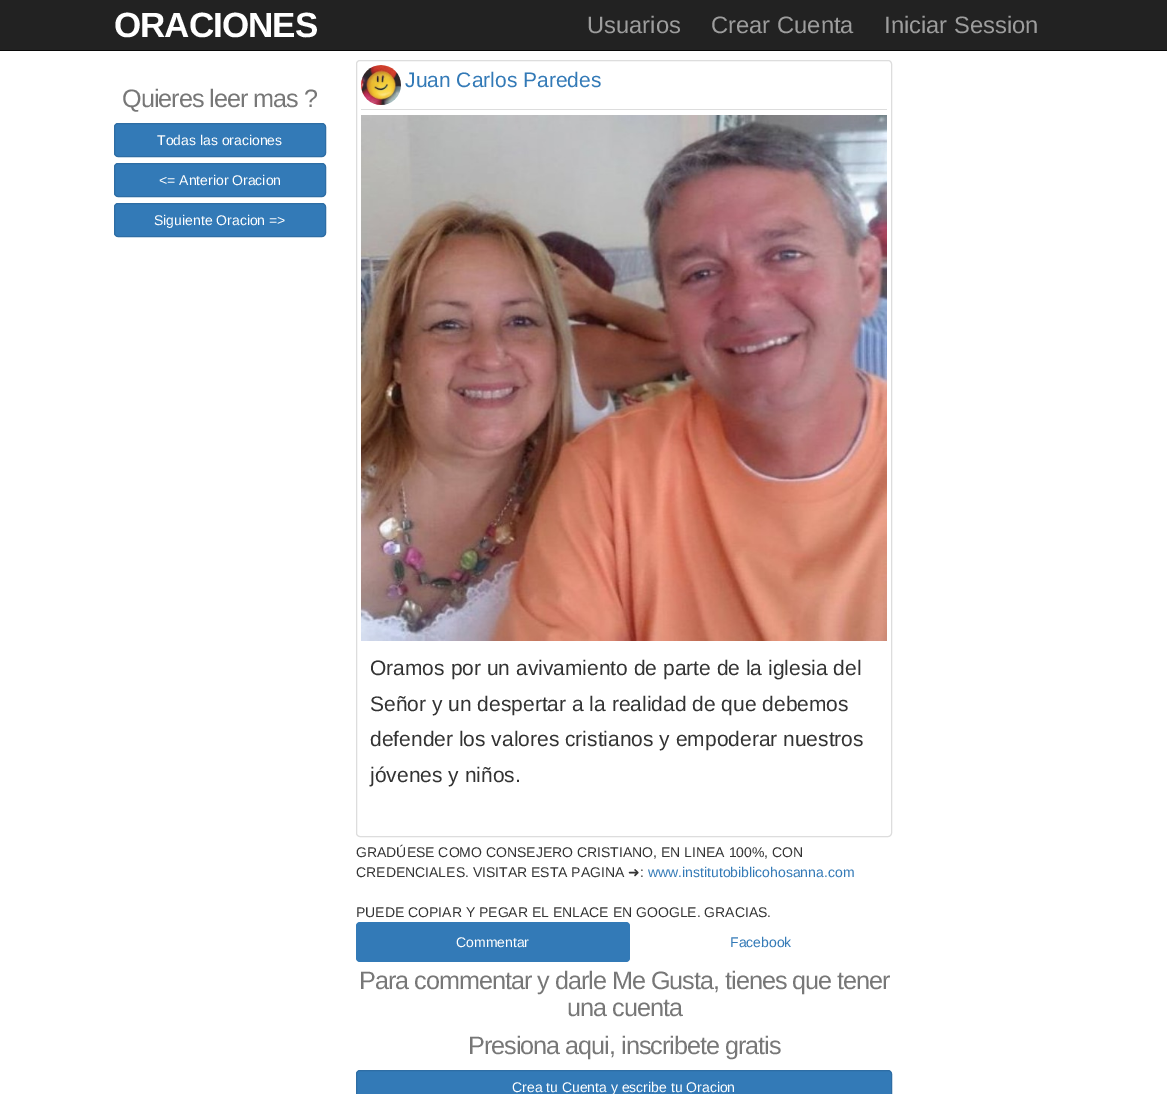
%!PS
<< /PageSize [1167 1094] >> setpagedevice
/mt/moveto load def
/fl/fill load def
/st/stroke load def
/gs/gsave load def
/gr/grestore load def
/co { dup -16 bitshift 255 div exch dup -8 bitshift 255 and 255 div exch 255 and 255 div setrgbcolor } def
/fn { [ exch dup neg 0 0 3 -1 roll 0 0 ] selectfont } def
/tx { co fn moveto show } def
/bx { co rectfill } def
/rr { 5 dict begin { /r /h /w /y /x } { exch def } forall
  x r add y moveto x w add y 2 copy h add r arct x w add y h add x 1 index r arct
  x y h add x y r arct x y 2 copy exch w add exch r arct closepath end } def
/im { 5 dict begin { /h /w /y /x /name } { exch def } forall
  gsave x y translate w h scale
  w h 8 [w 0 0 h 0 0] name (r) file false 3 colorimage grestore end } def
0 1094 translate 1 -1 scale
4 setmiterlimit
0 0 1167 1094 16#FFFFFF bx
0 0 1167 50 16#222222 bx
0 50 1167 1 16#090909 bx
16#337AB7 co
114.5 123.5 211 33 3.5 rr gs fl gr
16#2E6DA4 co
st
16#337AB7 co
114.5 163.5 211 33 3.5 rr gs fl gr
16#2E6DA4 co
st
16#337AB7 co
114.5 203.5 211 33 3.5 rr gs fl gr
16#2E6DA4 co
st
16#DDDDDD co
356.5 60.5 535 776 3.5 rr st
361 109 526 1 16#DDDDDD bx
(media/1.raw) 361 65 40 40 im
(media/2.raw) 361 115 526 526 im
16#337AB7 co
356 922 274 40 4 rr fl
356.5 1070.5 535 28 3.5 rr gs fl gr
16#2E6DA4 co
st
/LiberationSans-Bold 35 fn
16#FFFFFF co
114 37 mt -1 0 (ORACIONES) ashow
(Usuarios) 587 33 /LiberationSans-Regular 23.75 16#9D9D9D tx
(Crear Cuenta) 711 33 /LiberationSans-Regular 23.75 16#9D9D9D tx
(Iniciar Session) 884 33 /LiberationSans-Regular 23.75 16#9D9D9D tx
/LiberationSans-Regular 25.2 fn
16#777777 co
122 107 mt -1 0 (Quieres leer mas ?) ashow
(Todas las oraciones) 157 145 /LiberationSans-Regular 14 16#FFFFFF tx
(<= Anterior Oracion) 159 185 /LiberationSans-Regular 14 16#FFFFFF tx
(Siguiente Oracion =>) 154 225 /LiberationSans-Regular 14 16#FFFFFF tx
(Juan Carlos Paredes) 405 87 /LiberationSans-Regular 21 16#337AB7 tx
(Oramos por un avivamiento de parte de la iglesia del) 370 675 /LiberationSans-Regular 21 16#333333 tx
(Señor y un despertar a la realidad de que debemos) 370 711 /LiberationSans-Regular 21 16#333333 tx
(defender los valores cristianos y empoderar nuestros) 370 746 /LiberationSans-Regular 21 16#333333 tx
(jóvenes y niños.) 370 782 /LiberationSans-Regular 21 16#333333 tx
(GRADÚESE COMO CONSEJERO CRISTIANO, EN LINEA 100%, CON) 356 857 /LiberationSans-Regular 14 16#333333 tx
(CREDENCIALES. VISITAR ESTA PAGINA) 356 877 /LiberationSans-Regular 14 16#333333 tx
(➜) 628 877 /DejaVuSans-Regular 14 16#333333 tx
(:) 640 877 /LiberationSans-Regular 14 16#333333 tx
(www.institutobiblicohosanna.com) 648 877 /LiberationSans-Regular 14 16#337AB7 tx
(PUEDE COPIAR Y PEGAR EL ENLACE EN GOOGLE. GRACIAS.) 356 917 /LiberationSans-Regular 14 16#333333 tx
(Commentar) 456 947 /LiberationSans-Regular 14 16#FFFFFF tx
(Facebook) 730 947 /LiberationSans-Regular 14 16#337AB7 tx
/LiberationSans-Regular 25.2 fn
16#777777 co
359 989 mt -1 0 (Para commentar y darle Me Gusta, tienes que tener) ashow
567 1016 mt -1 0 (una cuenta) ashow
468 1054 mt -1 0 (Presiona aqui, inscribete gratis) ashow
(Crea tu Cuenta y escribe tu Oracion) 512 1092 /LiberationSans-Regular 14 16#FFFFFF tx
showpage
